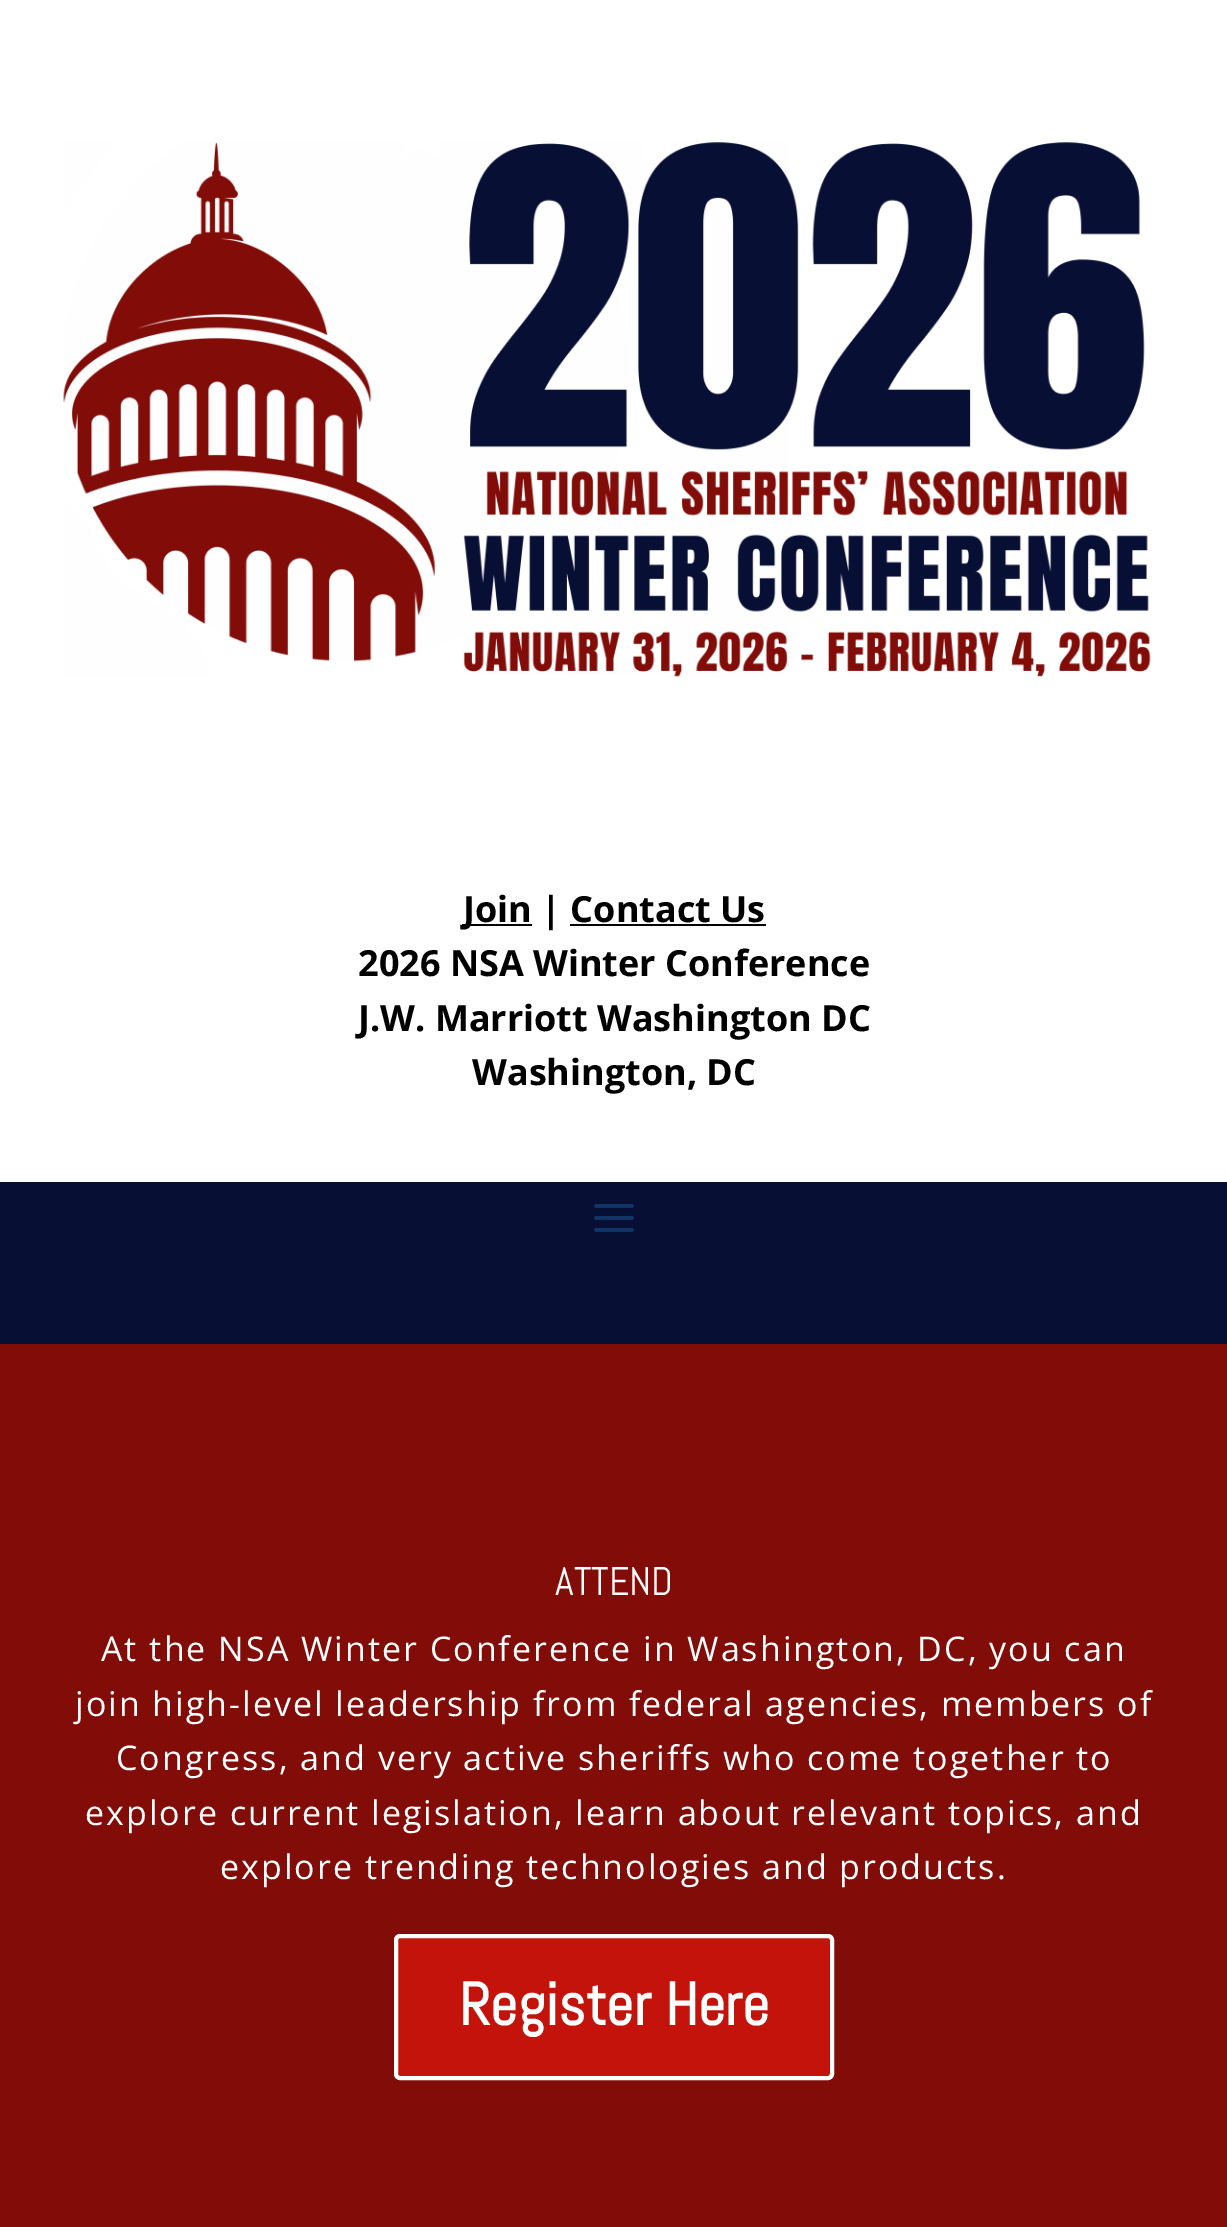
%!PS
<< /PageSize [1227 2227] >> setpagedevice
/mt/moveto load def
/fl/fill load def
/st/stroke load def
/gs/gsave load def
/gr/grestore load def
/lw/setlinewidth load def
/co { dup -16 bitshift 255 div exch dup -8 bitshift 255 and 255 div exch 255 and 255 div setrgbcolor } def
/fn { [ exch dup neg 0 0 3 -1 roll 0 0 ] selectfont } def
/tx { co fn moveto show } def
/bx { co rectfill } def
/rr { 5 dict begin { /r /h /w /y /x } { exch def } forall
  x r add y moveto x w add y 2 copy h add r arct x w add y h add x 1 index r arct
  x y h add x y r arct x y 2 copy exch w add exch r arct closepath end } def
/im { 5 dict begin { /h /w /y /x /name } { exch def } forall
  gsave x y translate w h scale
  w h 8 [w 0 0 h 0 0] name (r) file false 3 colorimage grestore end } def
0 2227 translate 1 -1 scale
4 setmiterlimit
0 0 1227 2227 16#FFFFFF bx
(media/1.raw) 63 142 1088 535 im
462 924 70 2 16#000000 bx
570 924 196 2 16#000000 bx
0 1182 1227 162 16#070F34 bx
(media/2.raw) 594 1204 40 28 im
0 1344 1227 883 16#810C08 bx
16#C4130B co
396 1936 436 142 4 rr gs fl gr
16#FFFFFF co
4 lw
st
(Join | Contact Us) 463 922 /OpenSans-Bold 36 16#000000 tx
(2026 NSA Winter Conference) 358 976 /OpenSans-Bold 36 16#000000 tx
(J.W. Marriott Washington DC) 358 1031 /OpenSans-Bold 36 16#000000 tx
(Washington, DC) 472 1085 /OpenSans-Bold 36 16#000000 tx
(ATTEND) 555 1595 /Abel-Regular 40 16#FFFFFF tx
/OpenSans-Regular 34 fn
101 1661 mt 2 0 (At the NSA Winter Conference in Washington, DC, you can) ashow
75 1716 mt 2 0 (join high-level leadership from federal agencies, members of) ashow
116 1770 mt 2 0 (Congress, and very active sheriffs who come together to) ashow
85 1825 mt 2 0 (explore current legislation, learn about relevant topics, and) ashow
220 1879 mt 2 0 (explore trending technologies and products.) ashow
(Register Here) 459 2025 /Abel-Bold 60 16#FFFFFF tx
showpage
